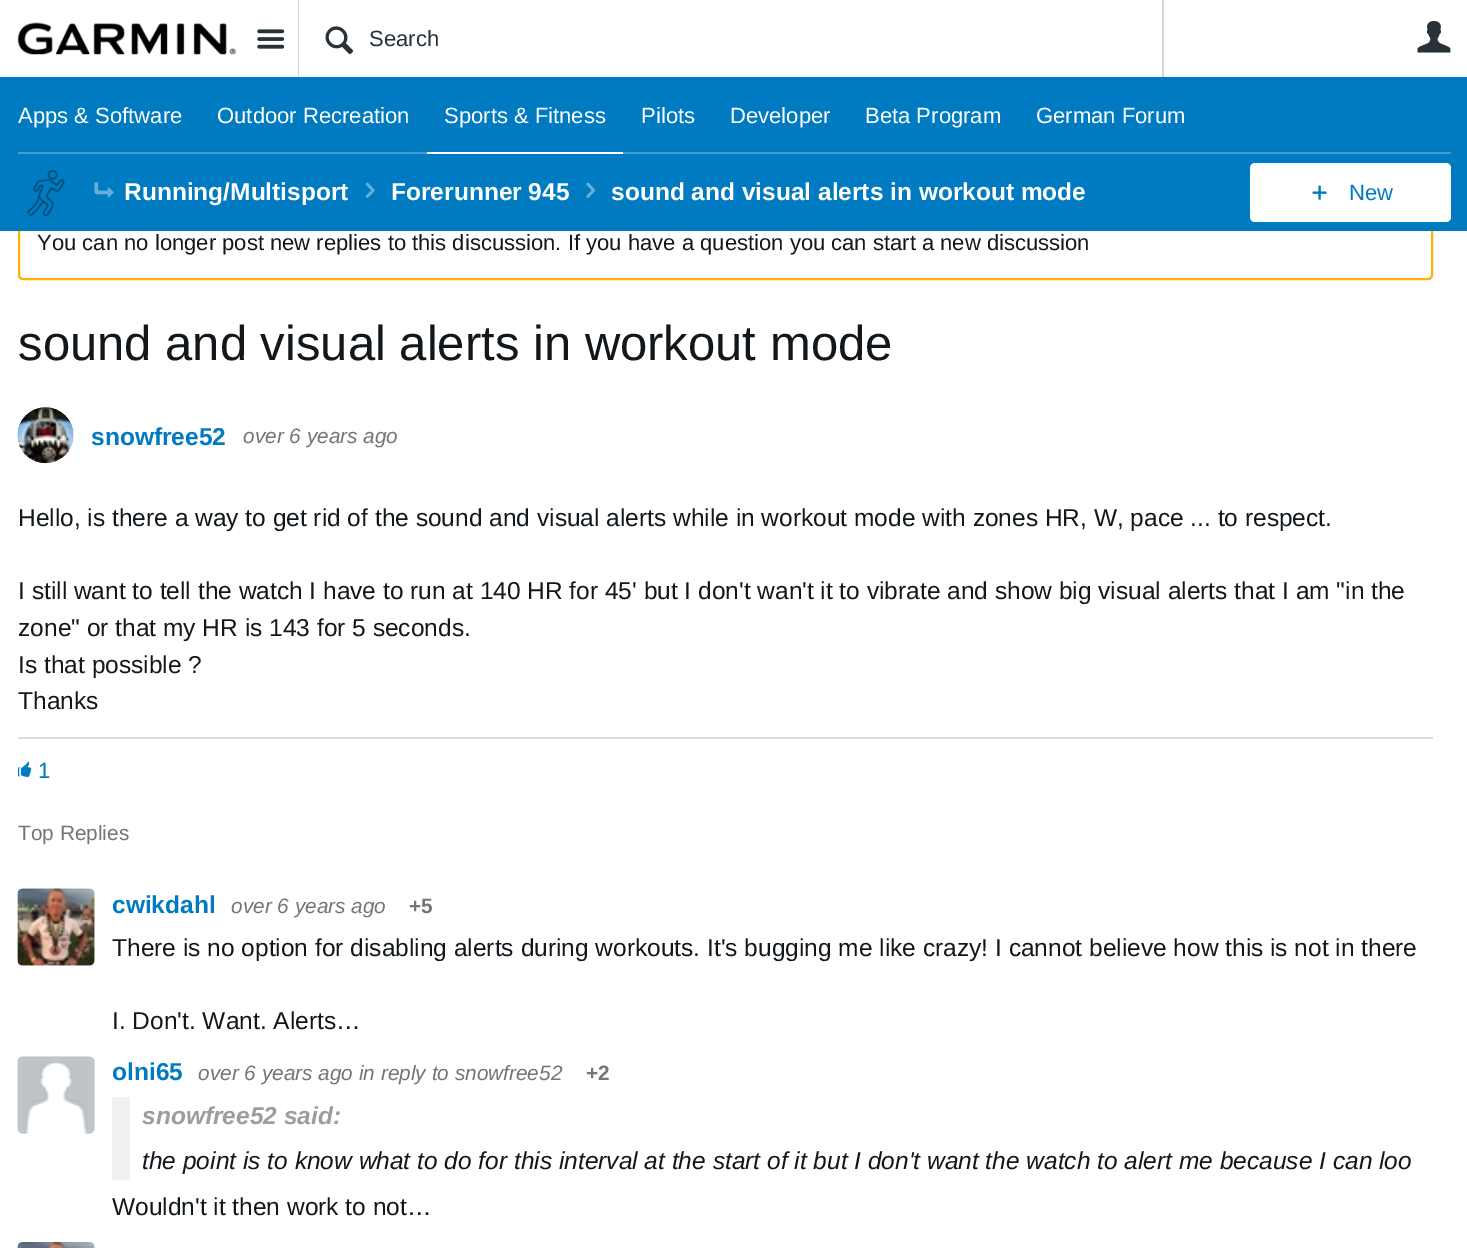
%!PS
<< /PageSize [1467 1248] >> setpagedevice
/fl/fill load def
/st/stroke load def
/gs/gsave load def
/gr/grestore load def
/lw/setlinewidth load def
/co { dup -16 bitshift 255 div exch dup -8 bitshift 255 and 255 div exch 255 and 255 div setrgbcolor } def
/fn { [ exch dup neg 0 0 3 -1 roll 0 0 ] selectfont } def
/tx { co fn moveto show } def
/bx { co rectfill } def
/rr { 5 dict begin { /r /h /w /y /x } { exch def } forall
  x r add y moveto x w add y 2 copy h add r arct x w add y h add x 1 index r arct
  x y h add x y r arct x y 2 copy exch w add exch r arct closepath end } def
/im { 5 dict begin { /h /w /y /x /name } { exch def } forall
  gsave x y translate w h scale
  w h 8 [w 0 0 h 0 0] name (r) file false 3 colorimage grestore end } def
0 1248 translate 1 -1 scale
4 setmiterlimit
0 0 1467 1248 16#FFFFFF bx
(media/1.raw) 17 22 220 33 im
(media/2.raw) 257 29 28 20 im
1162 0 2 77 16#CFD8DC bx
298 0 1 77 16#CFD8DC bx
(media/3.raw) 325 26 29 29 im
(media/4.raw) 1417 21 34 32 im
16#FFB300 co
2 lw
19 176 1413 103 4 rr st
0 77 1467 154 16#007BC1 bx
18 152 1433 2 16#409CD1 bx
427 152 196 2 16#FFFFFF bx
(media/5.raw) 26 169 39 48 im
(media/6.raw) 27 170 38 47 im
(media/7.raw) 94 182 20 16 im
(media/8.raw) 365 182 10 16 im
(media/9.raw) 586 182 10 16 im
1250 163 201 59 5 rr fl
(media/10.raw) 1312 185 15 15 im
(media/11.raw) 17 407 57 57 im
(media/12.raw) 17 407 57 57 im
18 737 1415 2 16#DBDCDD bx
(media/13.raw) 18 761 14 16 im
(media/14.raw) 17 888 78 78 im
(media/15.raw) 17 888 78 78 im
(media/16.raw) 17 1056 78 78 im
(media/17.raw) 17 1056 78 78 im
112 1097 18 83 16#F1F1F1 bx
(media/18.raw) 17 1242 78 6 im
(media/19.raw) 17 1242 78 6 im
(Search) 369 46 /LiberationSans-Regular 22.05 16#263238 tx
(Apps & Software) 18 123 /LiberationSans-Regular 22.05 16#FFFFFF tx
(Outdoor Recreation) 217 123 /LiberationSans-Regular 22.05 16#FFFFFF tx
(Sports & Fitness) 444 123 /LiberationSans-Regular 22.05 16#FFFFFF tx
(Pilots) 641 123 /LiberationSans-Regular 22.05 16#FFFFFF tx
(Developer) 730 123 /LiberationSans-Regular 22.05 16#FFFFFF tx
(Beta Program) 865 123 /LiberationSans-Regular 22.05 16#FFFFFF tx
(German Forum) 1036 123 /LiberationSans-Regular 22.05 16#FFFFFF tx
gs
124 175 224 35 rectclip
(Running/Multisport) 124 200 /LiberationSans-Bold 24.5 16#FFFFFF tx
gr
(Forerunner 945) 391 200 /LiberationSans-Bold 24.5 16#FFFFFF tx
(sound and visual alerts in workout mode) 611 200 /LiberationSans-Bold 24.5 16#FFFFFF tx
(New) 1349 200 /LiberationSans-Regular 22.05 16#007BC1 tx
(You can no longer post new replies to this discussion. If you have a question you can start a new discussion) 37 250 /LiberationSans-Regular 22.05 16#11171A tx
(sound and visual alerts in workout mode) 18 360 /LiberationSans-Regular 49 16#11171A tx
(snowfree52) 91 445 /LiberationSans-Bold 24.5 16#007BC1 tx
(over 6 years ago) 243 443 /LiberationSans-Italic 20.8 16#757575 tx
(Hello, is there a way to get rid of the sound and visual alerts while in workout mode with zones HR, W, pace ... to respect.) 18 526 /LiberationSans-Regular 24.5 16#11171A tx
(I still want to tell the watch I have to run at 140 HR for 45' but I don't wan't it to vibrate and show big visual alerts that I am "in the) 18 599 /LiberationSans-Regular 24.5 16#11171A tx
(zone" or that my HR is 143 for 5 seconds.) 18 636 /LiberationSans-Regular 24.5 16#11171A tx
(Is that possible ?) 18 673 /LiberationSans-Regular 24.5 16#11171A tx
(Thanks) 18 709 /LiberationSans-Regular 24.5 16#11171A tx
(1) 38 778 /LiberationSans-Regular 22.05 16#007BC1 tx
(Top Replies) 18 840 /LiberationSans-Regular 20.8 16#757575 tx
(cwikdahl) 112 913 /LiberationSans-Bold 24.5 16#007BC1 tx
(over 6 years ago) 231 913 /LiberationSans-Italic 20.8 16#757575 tx
(+5) 409 913 /LiberationSans-Bold 20.8 16#757575 tx
(There is no option for disabling alerts during workouts. It's bugging me like crazy! I cannot believe how this is not in there) 112 956 /LiberationSans-Regular 24.5 16#11171A tx
(I. Don't. Want. Alerts…) 112 1029 /LiberationSans-Regular 24.5 16#11171A tx
(olni65) 112 1080 /LiberationSans-Bold 24.5 16#007BC1 tx
(over 6 years ago in reply to snowfree52) 198 1080 /LiberationSans-Italic 20.8 16#757575 tx
(+2) 586 1080 /LiberationSans-Bold 20.8 16#757575 tx
(snowfree52 said:) 142 1124 /LiberationSans-BoldItalic 24.5 16#9B9E9F tx
(the point is to know what to do for this interval at the start of it but I don't want the watch to alert me because I can loo) 142 1169 /LiberationSans-Italic 24.5 16#11171A tx
(Wouldn't it then work to not…) 112 1215 /LiberationSans-Regular 24.5 16#11171A tx
showpage
